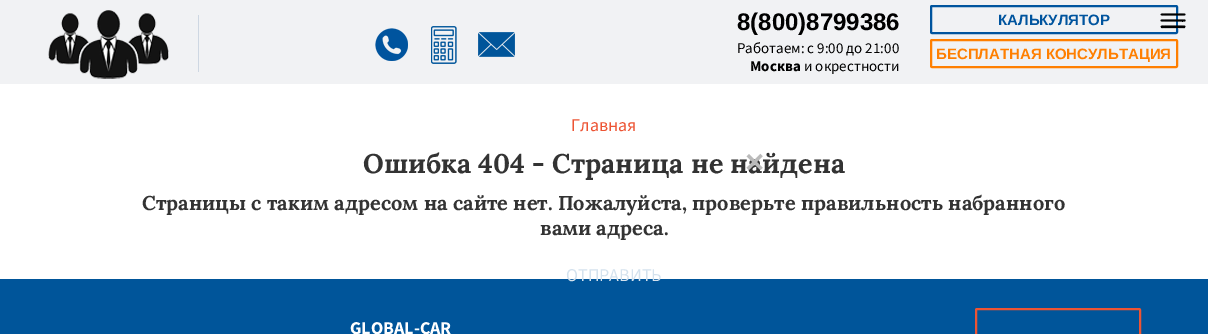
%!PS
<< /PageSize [1208 334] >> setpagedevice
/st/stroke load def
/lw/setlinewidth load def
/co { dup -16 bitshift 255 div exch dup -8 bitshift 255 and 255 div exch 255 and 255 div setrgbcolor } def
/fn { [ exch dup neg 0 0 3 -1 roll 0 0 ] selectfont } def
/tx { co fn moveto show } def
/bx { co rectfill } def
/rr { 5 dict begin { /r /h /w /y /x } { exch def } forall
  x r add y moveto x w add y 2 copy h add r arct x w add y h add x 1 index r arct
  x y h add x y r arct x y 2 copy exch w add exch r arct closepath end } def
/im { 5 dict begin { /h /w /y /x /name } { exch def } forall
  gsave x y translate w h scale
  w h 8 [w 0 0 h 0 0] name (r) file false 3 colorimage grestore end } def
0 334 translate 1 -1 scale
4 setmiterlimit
0 0 1208 334 16#FFFFFF bx
0 0 1208 84 16#F1F2F4 bx
(media/1.raw) 48 10 121 69 im
198 15 1 57 16#CED7E2 bx
(media/2.raw) 375 28 33 33 im
(media/3.raw) 431 26 26 38 im
(media/4.raw) 478 32 37 25 im
16#00549E co
2 lw
931 6 246 27 1 rr st
16#FF7F00 co
931 40 246 27 1 rr st
(media/5.raw) 1160 13 26 16 im
0 279 1208 55 16#00559A bx
16#ED5434 co
976 309 164 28 1 rr st
(8\(800\)8799386) 737 30 /LiberationSans-Bold 24 16#000000 tx
(Работаем: с 9:00 до 21:00) 737 53 /SourceSansPro-Regular 15 16#000000 tx
(Москва) 750 71 /SourceSansPro-Bold 15 16#000000 tx
(и окрестности) 804 71 /SourceSansPro-Regular 15 16#000000 tx
(КАЛЬКУЛЯТОР) 998 25 /LiberationSans-Bold 15 16#00549E tx
(БЕСПЛАТНАЯ КОНСУЛЬТАЦИЯ) 936 59 /LiberationSans-Bold 15 16#FF7F00 tx
(Главная) 571 131 /SourceSansPro-Regular 18 16#ED5434 tx
(Ошибка 404 - Страница не найдена) 363 173 /Lora-Bold 27 16#333333 tx
(Страницы с таким адресом на сайте нет. Пожалуйста, проверьте правильность набранного) 142 210 /Lora-Bold 20 16#333333 tx
(вами адреса.) 540 235 /Lora-Bold 20 16#333333 tx
(×) 745 173 /LiberationSans-Bold 33 16#BABABA tx
(ОТПРАВИТЬ) 566 281 /SourceSansPro-Regular 18 16#D4E2EE tx
(GLOBAL-CAR) 350 334 /SourceSansPro-Bold 18 16#FFFFFF tx
showpage
